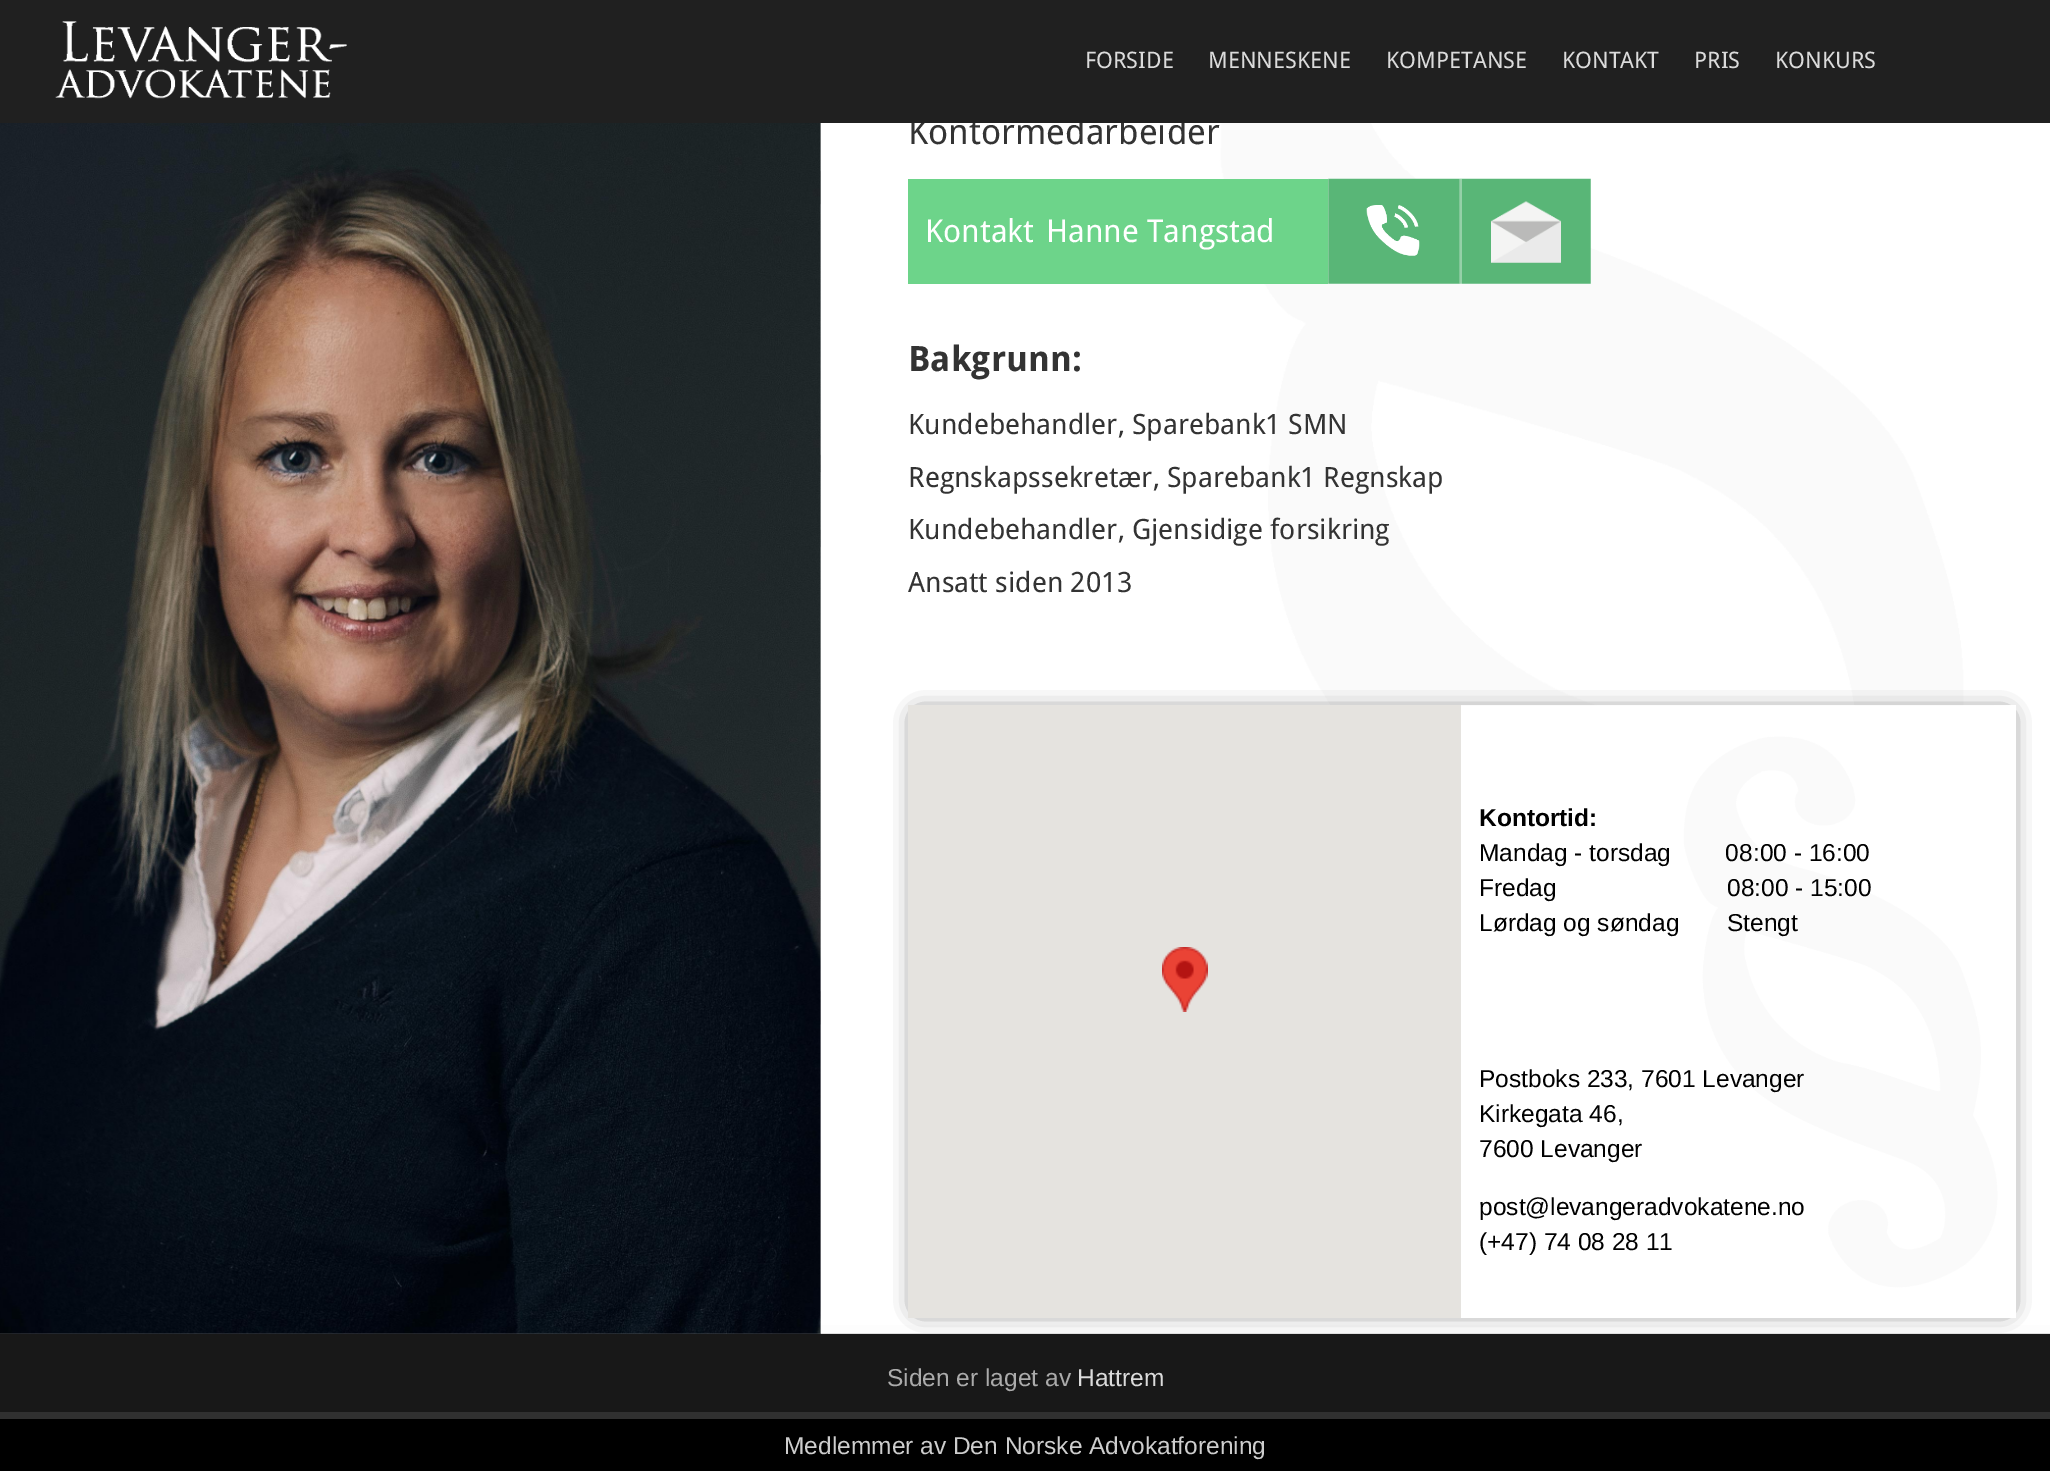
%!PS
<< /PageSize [2050 1471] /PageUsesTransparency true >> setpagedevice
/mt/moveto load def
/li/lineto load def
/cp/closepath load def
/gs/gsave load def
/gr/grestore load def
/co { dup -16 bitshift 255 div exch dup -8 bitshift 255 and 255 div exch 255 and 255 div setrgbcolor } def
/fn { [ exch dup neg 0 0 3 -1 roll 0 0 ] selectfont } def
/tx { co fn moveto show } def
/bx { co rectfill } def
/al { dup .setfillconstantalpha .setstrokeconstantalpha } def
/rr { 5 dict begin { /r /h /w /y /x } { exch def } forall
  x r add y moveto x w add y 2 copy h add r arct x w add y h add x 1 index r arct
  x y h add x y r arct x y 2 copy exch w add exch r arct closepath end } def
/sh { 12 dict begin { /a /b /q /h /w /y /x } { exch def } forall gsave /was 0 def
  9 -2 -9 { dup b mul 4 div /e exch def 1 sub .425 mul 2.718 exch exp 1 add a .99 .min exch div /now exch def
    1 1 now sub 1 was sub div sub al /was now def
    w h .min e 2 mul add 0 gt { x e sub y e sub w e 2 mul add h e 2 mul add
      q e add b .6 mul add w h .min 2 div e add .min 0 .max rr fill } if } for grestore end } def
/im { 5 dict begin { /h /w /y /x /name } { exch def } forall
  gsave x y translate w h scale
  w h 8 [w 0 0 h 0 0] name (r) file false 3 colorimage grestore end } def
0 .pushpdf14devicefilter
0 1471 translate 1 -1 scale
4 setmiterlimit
0 0 2050 1471 16#FFFFFF bx
0 1412 2050 7 16#303030 bx
0 1325 2050 9 16#808080 bx
(media/4.raw) 820 123 1230 1211 im
(media/2.raw) 820 123 1 1210 im
(media/3.raw) 0 123 821 1211 im
908 179 420 105 16#6DD48A bx
(media/5.raw) 1328 178 132 106 im
(media/6.raw) 1459 178 132 106 im
0.36 al
1460 179 2 105 16#FFFFFF bx
1 al
0 1334 2050 78 16#181818 bx
gs
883 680 mt 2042 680 li 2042 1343 li 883 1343 li cp 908 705 mt 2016 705 li 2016 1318 li 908 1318 li cp eoclip newpath
16#000000 co
919 716 1087 591 0 11.5 1 sh
gr
(media/7.raw) 1461 705 550 613 im
908 705 553 613 16#E5E3DF bx
(media/8.raw) 1162 947 46 65 im
0 1419 2050 52 16#000000 bx
(Kontormedarbeider) 908 144 /DroidSans-Regular 35 16#333333 tx
0 0 2050 123 16#202020 bx
(media/1.raw) 55 21 292 78 im
(FORSIDE) 1085 68 /DroidSans-Regular 22.75 16#DBDBDB tx
(MENNESKENE) 1208 68 /DroidSans-Regular 22.75 16#DBDBDB tx
(KOMPETANSE) 1386 68 /DroidSans-Regular 22.75 16#DBDBDB tx
(KONTAKT) 1562 68 /DroidSans-Regular 22.75 16#DBDBDB tx
(PRIS) 1694 68 /DroidSans-Regular 22.75 16#DBDBDB tx
(KONKURS) 1775 68 /DroidSans-Regular 22.75 16#DBDBDB tx
(Kontakt) 925 242 /DroidSans-Regular 31.5 16#FFFFFF tx
(Hanne Tangstad) 1046 242 /DroidSans-Regular 31.5 16#FFFFFF tx
(Bakgrunn:) 908 371 /DroidSans-Bold 35 16#333333 tx
(Kundebehandler, Sparebank1 SMN) 908 434 /DroidSans-Regular 28 16#333333 tx
(Regnskapssekretær, Sparebank1 Regnskap) 908 487 /DroidSans-Regular 28 16#333333 tx
(Kundebehandler, Gjensidige forsikring) 908 539 /DroidSans-Regular 28 16#333333 tx
(Ansatt siden 2013) 908 592 /DroidSans-Regular 28 16#333333 tx
(Kontortid:) 1479 826 /LiberationSans-Bold 24.5 16#000000 tx
(Mandag - torsdag        08:00 - 16:00) 1479 861 /LiberationSans-Regular 24.5 16#000000 tx
(Fredag) 1479 896 /LiberationSans-Regular 24.5 16#000000 tx
(08:00 - 15:00) 1727 896 /LiberationSans-Regular 24.5 16#000000 tx
(Lørdag og søndag       Stengt) 1479 931 /LiberationSans-Regular 24.5 16#000000 tx
(Postboks 233, 7601 Levanger) 1479 1087 /LiberationSans-Regular 24.5 16#000000 tx
(Kirkegata 46,) 1479 1122 /LiberationSans-Regular 24.5 16#000000 tx
(7600 Levanger) 1479 1157 /LiberationSans-Regular 24.5 16#000000 tx
(post@levangeradvokatene.no) 1479 1215 /LiberationSans-Regular 24.5 16#000000 tx
(\(+47\) 74 08 28 11) 1479 1250 /LiberationSans-Regular 24.5 16#000000 tx
(Siden er laget av) 887 1386 /LiberationSans-Regular 24.5 16#ABABAB tx
(Hattrem) 1077 1386 /LiberationSans-Regular 24.5 16#DBDBDB tx
(Medlemmer av Den Norske Advokatforening) 784 1454 /LiberationSans-Regular 24.5 16#CDCDCD tx
.poppdf14devicefilter showpage
